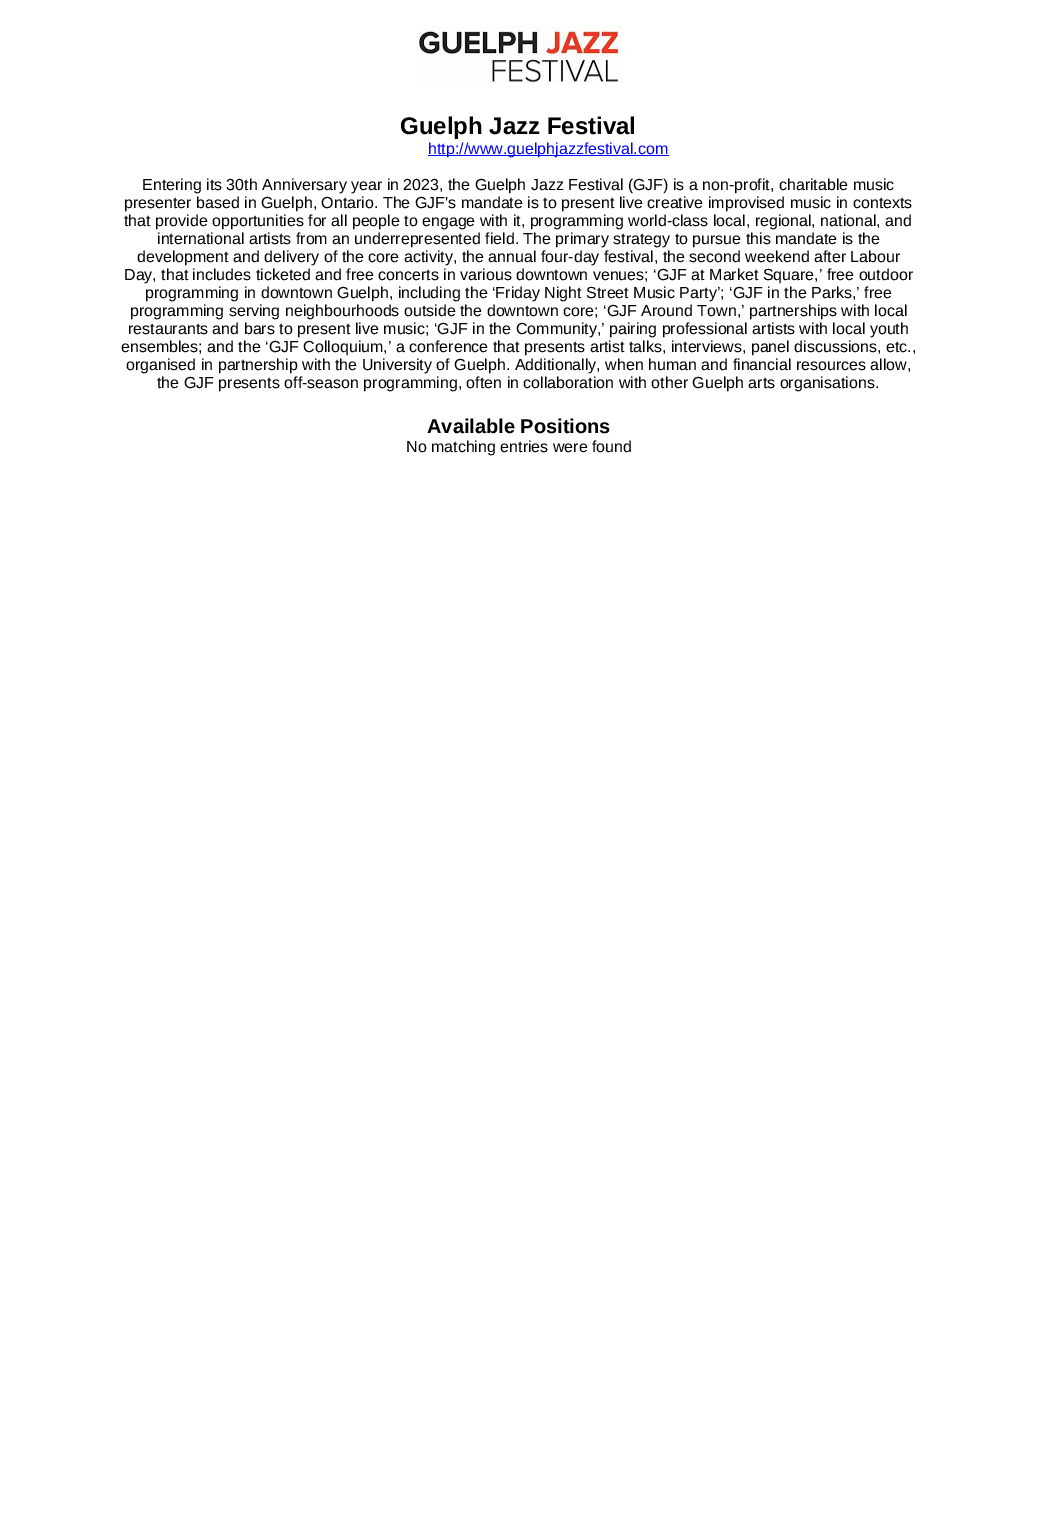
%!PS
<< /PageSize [1037 1530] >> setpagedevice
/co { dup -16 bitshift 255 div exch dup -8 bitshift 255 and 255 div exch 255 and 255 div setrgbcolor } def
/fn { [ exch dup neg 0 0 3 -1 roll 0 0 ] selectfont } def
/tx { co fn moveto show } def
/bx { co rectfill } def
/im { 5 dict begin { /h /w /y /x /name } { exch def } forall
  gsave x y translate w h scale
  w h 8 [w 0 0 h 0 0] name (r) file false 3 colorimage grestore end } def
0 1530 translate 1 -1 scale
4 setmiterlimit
0 0 1037 1530 16#FFFFFF bx
(media/1.raw) 418 26 204 57 im
428 155 40 1 16#0000FF bx
468 155 201 1 16#0000FF bx
(Guelph Jazz Festival) 400 134 /LiberationSans-Bold 24 16#000000 tx
(http://) 428 154 /LiberationSans-Regular 16 16#0000FF tx
(www.guelphjazzfestival.com) 468 154 /LiberationSans-Regular 16 16#0000FF tx
(Entering its 30th Anniversary year in 2023, the Guelph Jazz Festival \(GJF\) is a non-profit, charitable music) 142 190 /LiberationSans-Regular 16 16#000000 tx
(presenter based in Guelph, Ontario. The GJF's mandate is to present live creative improvised music in contexts) 124 208 /LiberationSans-Regular 16 16#000000 tx
(that provide opportunities for all people to engage with it, programming world-class local, regional, national, and) 124 226 /LiberationSans-Regular 16 16#000000 tx
(international artists from an underrepresented field. The primary strategy to pursue this mandate is the) 157 244 /LiberationSans-Regular 16 16#000000 tx
(development and delivery of the core activity, the annual four-day festival, the second weekend after Labour) 137 262 /LiberationSans-Regular 16 16#000000 tx
(Day, that includes ticketed and free concerts in various downtown venues; ‘GJF at Market Square,’ free outdoor) 124 280 /LiberationSans-Regular 16 16#000000 tx
(programming in downtown Guelph, including the ‘Friday Night Street Music Party’; ‘GJF in the Parks,’ free) 145 298 /LiberationSans-Regular 16 16#000000 tx
(programming serving neighbourhoods outside the downtown core; ‘GJF Around Town,’ partnerships with local) 130 316 /LiberationSans-Regular 16 16#000000 tx
(restaurants and bars to present live music; ‘GJF in the Community,’ pairing professional artists with local youth) 128 334 /LiberationSans-Regular 16 16#000000 tx
(ensembles; and the ‘GJF Colloquium,’ a conference that presents artist talks, interviews, panel discussions, etc.,) 121 352 /LiberationSans-Regular 16 16#000000 tx
(organised in partnership with the University of Guelph. Additionally, when human and financial resources allow,) 126 370 /LiberationSans-Regular 16 16#000000 tx
(the GJF presents off-season programming, often in collaboration with other Guelph arts organisations.) 157 388 /LiberationSans-Regular 16 16#000000 tx
(Available Positions) 427 433 /LiberationSans-Bold 20 16#000000 tx
(No matching entries were found) 406 452 /LiberationSans-Regular 16 16#000000 tx
showpage
